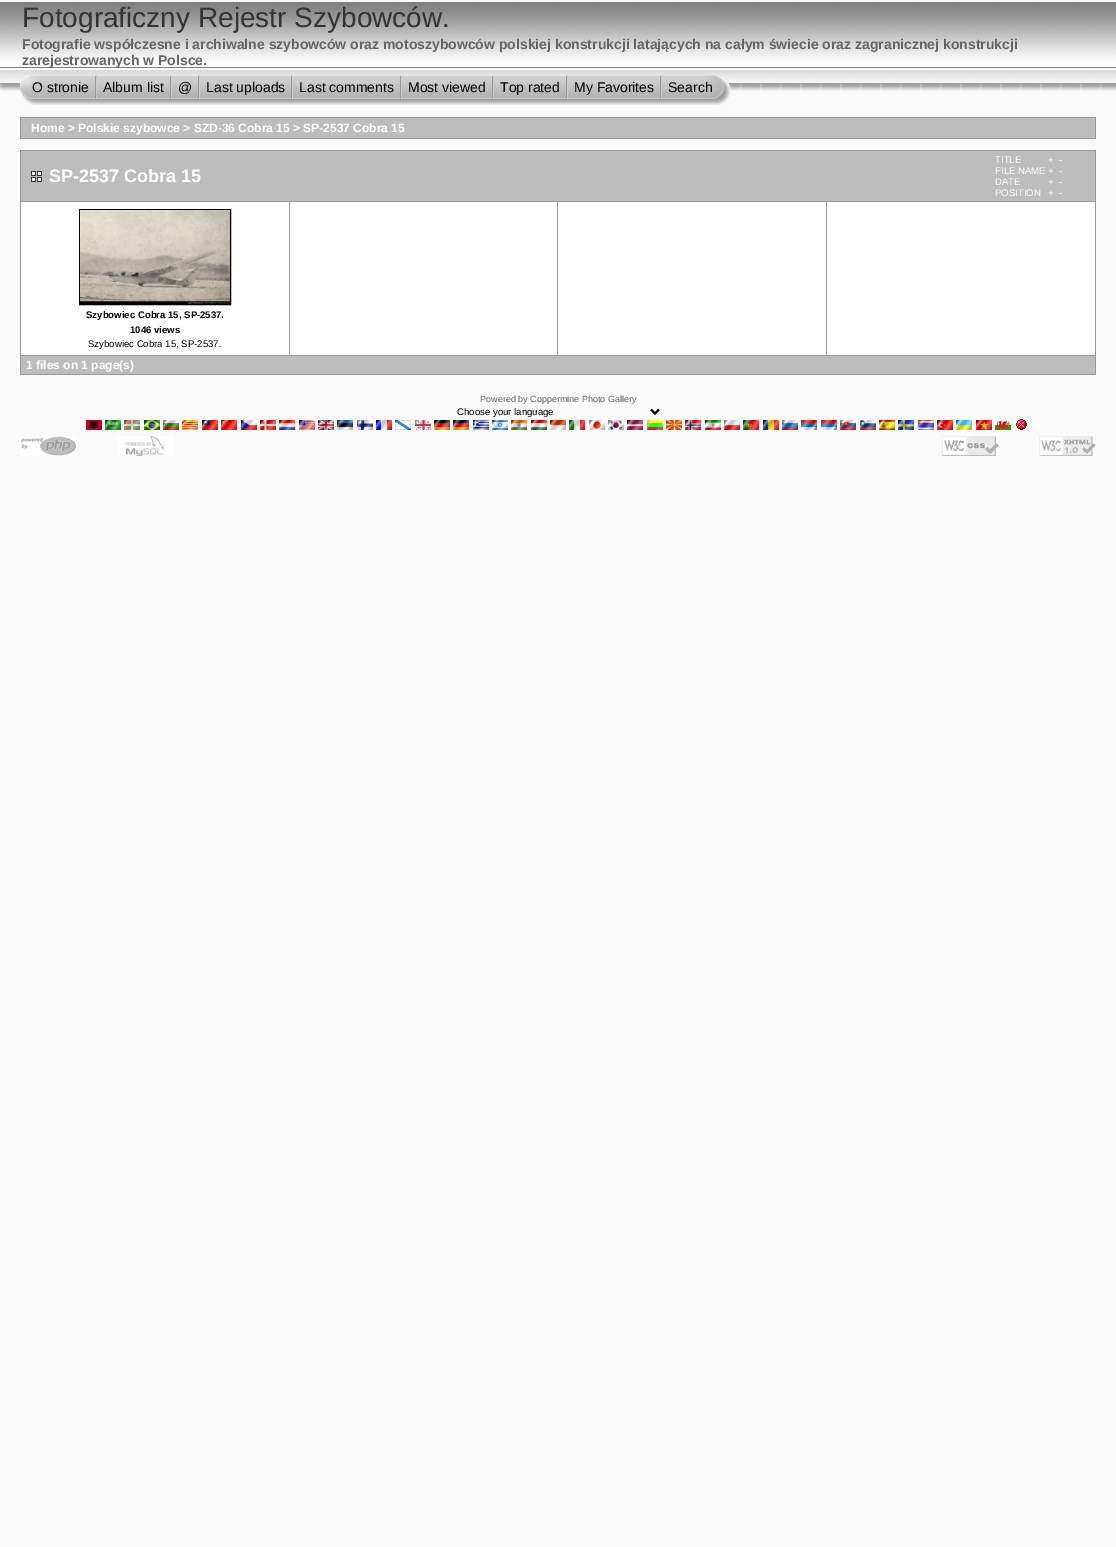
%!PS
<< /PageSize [1116 1547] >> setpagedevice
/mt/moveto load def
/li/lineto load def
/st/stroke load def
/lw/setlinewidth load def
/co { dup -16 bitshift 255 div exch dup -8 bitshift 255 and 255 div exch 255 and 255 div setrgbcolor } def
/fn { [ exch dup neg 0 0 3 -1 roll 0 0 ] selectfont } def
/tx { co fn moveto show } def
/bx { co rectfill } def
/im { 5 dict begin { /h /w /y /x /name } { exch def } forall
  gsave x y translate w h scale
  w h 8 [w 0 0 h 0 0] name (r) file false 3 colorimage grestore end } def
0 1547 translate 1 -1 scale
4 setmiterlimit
0 0 1116 1547 16#FAFAFA bx
(media/1.raw) 0 2 1116 66 im
(media/2.raw) 0 70 1116 21 im
(media/3.raw) 20 75 75 30 im
(media/4.raw) 95 75 2 30 im
(media/5.raw) 97 76 73 29 im
(media/4.raw) 170 75 2 30 im
(media/6.raw) 172 76 26 29 im
(media/4.raw) 198 75 2 30 im
(media/7.raw) 200 76 91 29 im
(media/4.raw) 291 75 2 30 im
(media/8.raw) 293 76 107 29 im
(media/4.raw) 400 75 2 30 im
(media/9.raw) 402 76 90 29 im
(media/4.raw) 492 75 2 30 im
(media/10.raw) 494 76 72 29 im
(media/4.raw) 566 75 2 30 im
(media/11.raw) 568 76 92 29 im
(media/4.raw) 660 75 2 30 im
(media/12.raw) 662 75 69 30 im
20 117 1076 22 16#999999 bx
21 118 1074 20 16#BDBDBD bx
20 150 1076 225 16#999999 bx
21 151 1074 50 16#BDBDBD bx
(media/13.raw) 31 171 11 11 im
21 202 268 153 16#FFFFFF bx
16#000000 co
79.5 209.5 151 95 rectstroke
(media/14.raw) 80 210 150 94 im
290 202 267 153 16#FFFFFF bx
558 202 268 153 16#FFFFFF bx
827 202 268 153 16#FFFFFF bx
21 356 1074 18 16#BDBDBD bx
16#000000 co
2 lw
651 409.5 mt 655 413.5 li 659 409.5 li st
(media/15.raw) 86 420 16 10 im
(media/16.raw) 105 420 16 10 im
(media/17.raw) 124 420 16 10 im
(media/18.raw) 144 420 16 10 im
(media/19.raw) 163 420 16 10 im
(media/20.raw) 182 420 16 10 im
(media/21.raw) 202 420 16 10 im
(media/22.raw) 221 420 16 10 im
(media/23.raw) 241 420 16 10 im
(media/24.raw) 260 420 16 10 im
(media/25.raw) 279 420 16 10 im
(media/26.raw) 299 420 16 10 im
(media/27.raw) 318 420 16 10 im
(media/28.raw) 337 420 16 10 im
(media/29.raw) 357 420 16 10 im
(media/30.raw) 376 420 16 10 im
(media/31.raw) 395 420 16 10 im
(media/32.raw) 415 420 16 10 im
(media/33.raw) 434 420 16 10 im
(media/33.raw) 453 420 16 10 im
(media/34.raw) 473 420 16 10 im
(media/35.raw) 492 420 16 10 im
(media/36.raw) 511 420 16 10 im
(media/37.raw) 531 420 16 10 im
(media/38.raw) 550 420 16 10 im
(media/39.raw) 569 420 16 10 im
(media/40.raw) 589 420 16 10 im
(media/41.raw) 608 420 16 10 im
(media/42.raw) 627 420 16 10 im
(media/43.raw) 647 420 16 10 im
(media/44.raw) 666 420 16 10 im
(media/45.raw) 685 420 16 10 im
(media/46.raw) 705 420 16 10 im
(media/47.raw) 724 420 16 10 im
(media/48.raw) 743 420 16 10 im
(media/49.raw) 763 420 16 10 im
(media/50.raw) 782 420 16 10 im
(media/51.raw) 801 420 16 10 im
(media/51.raw) 821 420 16 10 im
(media/52.raw) 840 420 16 10 im
(media/53.raw) 860 420 16 10 im
(media/54.raw) 879 420 16 10 im
(media/55.raw) 898 420 16 10 im
(media/56.raw) 918 420 16 10 im
(media/57.raw) 937 420 16 10 im
(media/58.raw) 956 420 16 10 im
(media/59.raw) 976 420 16 10 im
(media/60.raw) 995 420 16 10 im
(media/61.raw) 1016 419 11 11 im
(media/62.raw) 20 436 57 20 im
(media/63.raw) 117 436 57 20 im
(media/64.raw) 942 436 57 20 im
(media/65.raw) 1039 436 57 20 im
(Fotograficzny Rejestr Szybowców.) 22 27 /LiberationSans-Regular 28 16#333333 tx
(Fotografie współczesne i archiwalne szybowców oraz motoszybowców polskiej konstrukcji latających na całym świecie oraz zagranicznej konstrukcji) 22 49 /LiberationSans-Bold 14 16#646464 tx
(zarejestrowanych w Polsce.) 22 65 /LiberationSans-Bold 14 16#646464 tx
(O stronie) 32 92 /LiberationSans-Regular 14 16#000000 tx
(Album list) 103 92 /LiberationSans-Regular 14 16#000000 tx
(@) 178 92 /LiberationSans-Regular 14 16#000000 tx
(Last uploads) 206 92 /LiberationSans-Regular 14 16#000000 tx
(Last comments) 299 92 /LiberationSans-Regular 14 16#000000 tx
(Most viewed) 408 92 /LiberationSans-Regular 14 16#000000 tx
(Top rated) 500 92 /LiberationSans-Regular 14 16#000000 tx
(My Favorites) 574 92 /LiberationSans-Regular 14 16#000000 tx
(Search) 668 92 /LiberationSans-Regular 14 16#000000 tx
(Home > Polskie szybowce > SZD-36 Cobra 15 > SP-2537 Cobra 15) 31 132 /LiberationSans-Bold 12 16#FFFFFF tx
(SP-2537 Cobra 15) 49 182 /LiberationSans-Bold 18 16#FFFFFF tx
(TITLE) 995 163 /LiberationSans-Regular 9.6 16#FFFFFF tx
(+) 1048 163 /LiberationSans-Regular 9.6 16#FFFFFF tx
(-) 1059 163 /LiberationSans-Regular 9.6 16#FFFFFF tx
(FILE NAME +) 995 174 /LiberationSans-Regular 9.6 16#FFFFFF tx
(-) 1059 174 /LiberationSans-Regular 9.6 16#FFFFFF tx
(DATE) 995 185 /LiberationSans-Regular 9.6 16#FFFFFF tx
(+) 1048 185 /LiberationSans-Regular 9.6 16#FFFFFF tx
(-) 1059 185 /LiberationSans-Regular 9.6 16#FFFFFF tx
(POSITION) 995 196 /LiberationSans-Regular 9.6 16#FFFFFF tx
(+) 1048 196 /LiberationSans-Regular 9.6 16#FFFFFF tx
(-) 1059 196 /LiberationSans-Regular 9.6 16#FFFFFF tx
(Szybowiec Cobra 15, SP-2537.) 86 318 /LiberationSans-Bold 9.6 16#000000 tx
(1046 views) 130 333 /LiberationSans-Bold 9.6 16#000000 tx
(Szybowiec Cobra 15, SP-2537.) 88 347 /LiberationSans-Regular 9.6 16#000000 tx
(1 files on 1 page\(s\)) 26 369 /LiberationSans-Bold 12 16#FFFFFF tx
(Powered by Coppermine Photo Gallery) 480 402 /LiberationSans-Regular 9 16#646464 tx
(Choose your language) 457 415 /LiberationSans-Regular 9.6 16#000000 tx
showpage
